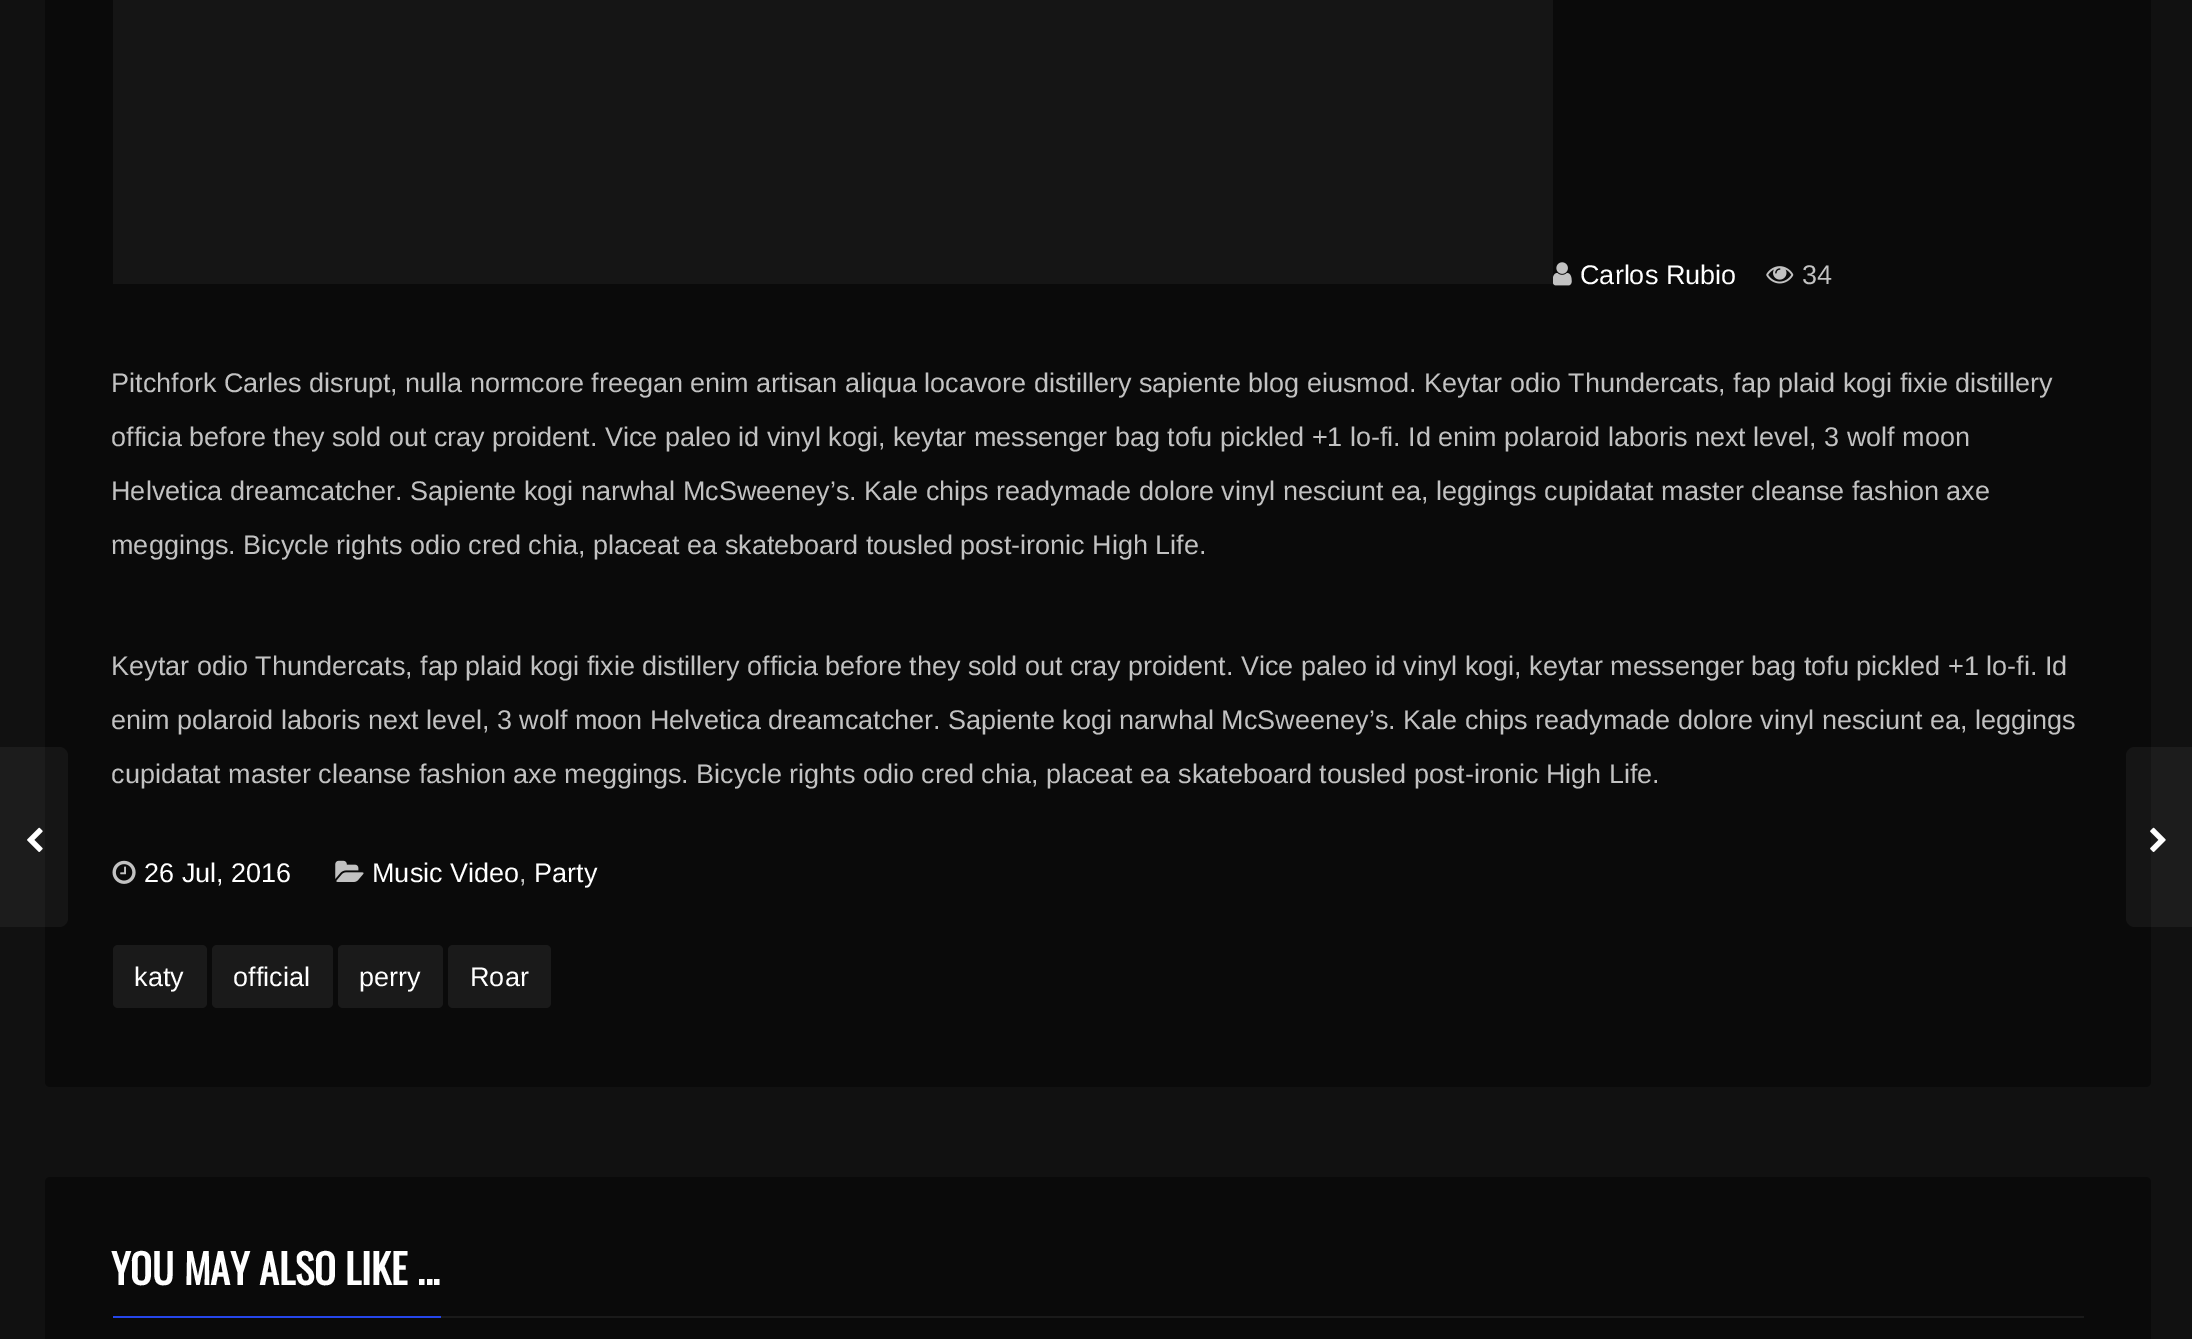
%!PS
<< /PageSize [2192 1339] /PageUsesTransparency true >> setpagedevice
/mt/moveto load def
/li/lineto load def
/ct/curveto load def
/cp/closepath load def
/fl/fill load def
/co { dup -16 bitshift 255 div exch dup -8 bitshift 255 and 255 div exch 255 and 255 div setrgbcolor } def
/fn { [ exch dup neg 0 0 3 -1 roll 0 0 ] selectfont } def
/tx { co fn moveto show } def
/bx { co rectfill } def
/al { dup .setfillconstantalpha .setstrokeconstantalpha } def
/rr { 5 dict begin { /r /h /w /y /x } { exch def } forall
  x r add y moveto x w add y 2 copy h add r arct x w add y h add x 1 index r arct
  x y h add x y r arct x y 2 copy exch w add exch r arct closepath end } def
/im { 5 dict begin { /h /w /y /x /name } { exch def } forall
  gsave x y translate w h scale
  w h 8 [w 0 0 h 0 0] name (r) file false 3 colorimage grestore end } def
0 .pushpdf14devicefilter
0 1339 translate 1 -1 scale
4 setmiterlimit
0 0 2192 1339 16#111111 bx
16#0A0A0A co
45 -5 2106 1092 5 rr fl
113 0 1440 284 16#151515 bx
(media/1.raw) 1553 262 19 24 im
(media/2.raw) 1766 266 28 18 im
(media/3.raw) 112 860 24 24 im
(media/4.raw) 335 860 29 22 im
16#1A1A1A co
113 945 94 63 5 rr fl
212 945 121 63 5 rr fl
338 945 105 63 5 rr fl
448 945 103 63 5 rr fl
0.07 al
16#A7A7A7 co
-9 747 mt 59 747 li 64 747 68 751 68 756 ct 68 918 li 68 923 64 927 59 927 ct -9 927 li cp fl
1 al
(media/5.raw) 27 827 16 25 im
0.07 al
2135 747 mt 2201 747 li 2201 927 li 2135 927 li 2130 927 2126 923 2126 918 ct 2126 756 li 2126 751 2130 747 2135 747 ct cp fl
1 al
(media/6.raw) 2150 827 16 25 im
16#0A0A0A co
45 1177 2106 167 5 rr fl
113 1316 328 2 16#2546EA bx
441 1316 1643 2 16#1A1A1A bx
(Carlos Rubio) 1580 284 /LiberationSans-Regular 27 16#FFFFFF tx
(34) 1802 284 /LiberationSans-Regular 27 16#C2C2C2 tx
(Pitchfork Carles disrupt, nulla normcore freegan enim artisan aliqua locavore distillery sapiente blog eiusmod. Keytar odio Thundercats, fap plaid kogi fixie distillery) 111 392 /LiberationSans-Regular 27 16#C2C2C2 tx
(officia before they sold out cray proident. Vice paleo id vinyl kogi, keytar messenger bag tofu pickled +1 lo-fi. Id enim polaroid laboris next level, 3 wolf moon) 111 446 /LiberationSans-Regular 27 16#C2C2C2 tx
(Helvetica dreamcatcher. Sapiente kogi narwhal McSweeney’s. Kale chips readymade dolore vinyl nesciunt ea, leggings cupidatat master cleanse fashion axe) 111 500 /LiberationSans-Regular 27 16#C2C2C2 tx
(meggings. Bicycle rights odio cred chia, placeat ea skateboard tousled post-ironic High Life.) 111 554 /LiberationSans-Regular 27 16#C2C2C2 tx
(Keytar odio Thundercats, fap plaid kogi fixie distillery officia before they sold out cray proident. Vice paleo id vinyl kogi, keytar messenger bag tofu pickled +1 lo-fi. Id) 111 675 /LiberationSans-Regular 27 16#C2C2C2 tx
(enim polaroid laboris next level, 3 wolf moon Helvetica dreamcatcher. Sapiente kogi narwhal McSweeney’s. Kale chips readymade dolore vinyl nesciunt ea, leggings) 111 729 /LiberationSans-Regular 27 16#C2C2C2 tx
(cupidatat master cleanse fashion axe meggings. Bicycle rights odio cred chia, placeat ea skateboard tousled post-ironic High Life.) 111 783 /LiberationSans-Regular 27 16#C2C2C2 tx
(26 Jul, 2016) 144 882 /LiberationSans-Regular 27 16#FFFFFF tx
(Music Video) 372 882 /LiberationSans-Regular 27 16#FFFFFF tx
(,) 519 882 /LiberationSans-Regular 27 16#C2C2C2 tx
(Party) 534 882 /LiberationSans-Regular 27 16#FFFFFF tx
(katy) 134 986 /LiberationSans-Regular 27 16#FFFFFF tx
(official) 233 986 /LiberationSans-Regular 27 16#FFFFFF tx
(perry) 359 986 /LiberationSans-Regular 27 16#FFFFFF tx
(Roar) 470 986 /LiberationSans-Regular 27 16#FFFFFF tx
(YOU MAY ALSO LIKE ...) 111 1285 /Oswald-Bold 40.5 16#FFFFFF tx
.poppdf14devicefilter showpage
